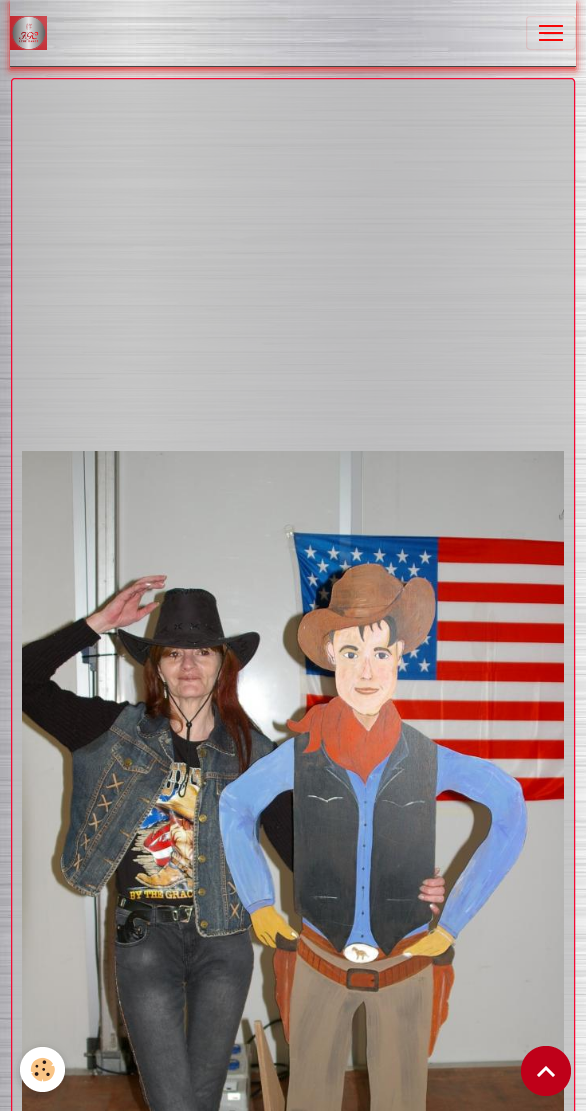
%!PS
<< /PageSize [586 1111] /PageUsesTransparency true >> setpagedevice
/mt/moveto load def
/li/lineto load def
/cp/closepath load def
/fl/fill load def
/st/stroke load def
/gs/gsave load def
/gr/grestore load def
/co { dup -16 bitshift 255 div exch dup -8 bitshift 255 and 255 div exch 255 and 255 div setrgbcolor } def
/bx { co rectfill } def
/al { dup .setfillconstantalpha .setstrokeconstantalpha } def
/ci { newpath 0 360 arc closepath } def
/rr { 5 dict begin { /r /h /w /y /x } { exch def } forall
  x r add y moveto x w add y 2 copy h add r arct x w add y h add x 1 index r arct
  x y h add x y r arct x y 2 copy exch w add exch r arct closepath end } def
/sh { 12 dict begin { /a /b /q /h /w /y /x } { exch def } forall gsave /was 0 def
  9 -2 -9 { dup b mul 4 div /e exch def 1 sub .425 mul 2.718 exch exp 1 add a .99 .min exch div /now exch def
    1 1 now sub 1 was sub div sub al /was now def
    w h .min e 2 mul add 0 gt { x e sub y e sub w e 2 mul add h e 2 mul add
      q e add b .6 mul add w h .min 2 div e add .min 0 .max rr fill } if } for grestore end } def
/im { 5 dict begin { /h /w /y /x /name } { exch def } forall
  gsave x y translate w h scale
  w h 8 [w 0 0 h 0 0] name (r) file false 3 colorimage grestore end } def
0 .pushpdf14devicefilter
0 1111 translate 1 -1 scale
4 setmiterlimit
0 0 586 1111 16#FFFFFF bx
(media/1.raw) 0 0 586 1111 im
0.76 al
16#BCBCBC co
11.5 78.5 563 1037 3.5 rr fl
1 al
16#F50934 co
11.5 78.5 563 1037 3.5 rr st
gs
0 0 mt 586 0 li 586 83 li 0 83 li cp 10 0 mt 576 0 li 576 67 li 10 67 li cp eoclip newpath
16#E42828 co
10 3 566 67 0 4 1 sh
gr
10 66 566 1 16#444444 bx
(media/2.raw) 10 16 37 34 im
0.1 al
16#F70606 co
526.5 16.5 49 33 3.5 rr st
1 al
539 25 24 2 1 rr fl
539 32 24 2 1 rr fl
539 39 24 2 1 rr fl
(media/3.raw) 22 451 542 660 im
16#000000 co
20 1050 45 45 22.5 5 .24 sh
16#FFFFFF co
42.5 1069.5 22.5 ci fl
(media/4.raw) 30 1057 25 25 im
16#BF0019 co
546 1071 25 ci fl
16#FFFFFF co
546 1066 mt 555 1075 li 553 1077 li 546 1070 li 539 1077 li 537 1075 li cp fl
.poppdf14devicefilter showpage
